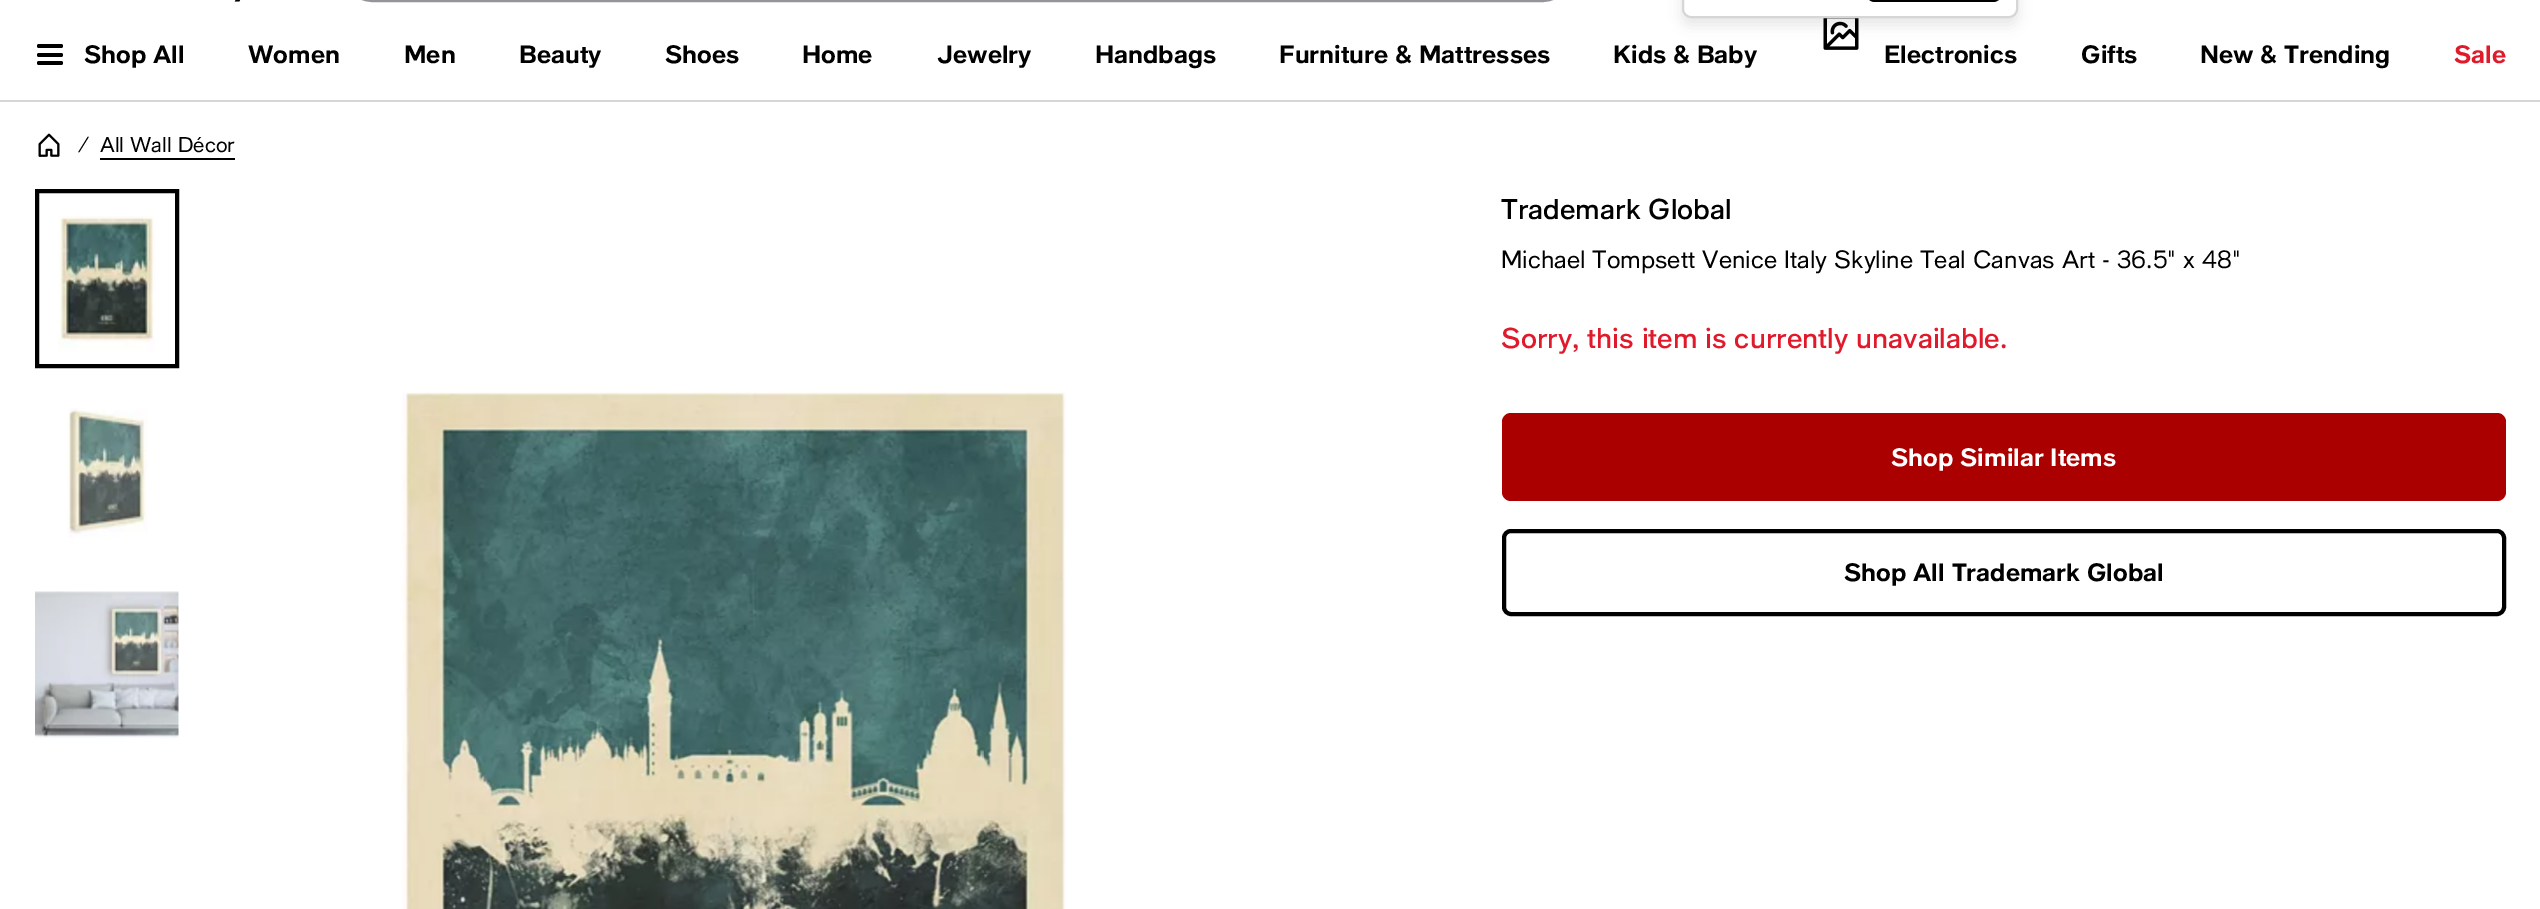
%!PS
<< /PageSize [2540 909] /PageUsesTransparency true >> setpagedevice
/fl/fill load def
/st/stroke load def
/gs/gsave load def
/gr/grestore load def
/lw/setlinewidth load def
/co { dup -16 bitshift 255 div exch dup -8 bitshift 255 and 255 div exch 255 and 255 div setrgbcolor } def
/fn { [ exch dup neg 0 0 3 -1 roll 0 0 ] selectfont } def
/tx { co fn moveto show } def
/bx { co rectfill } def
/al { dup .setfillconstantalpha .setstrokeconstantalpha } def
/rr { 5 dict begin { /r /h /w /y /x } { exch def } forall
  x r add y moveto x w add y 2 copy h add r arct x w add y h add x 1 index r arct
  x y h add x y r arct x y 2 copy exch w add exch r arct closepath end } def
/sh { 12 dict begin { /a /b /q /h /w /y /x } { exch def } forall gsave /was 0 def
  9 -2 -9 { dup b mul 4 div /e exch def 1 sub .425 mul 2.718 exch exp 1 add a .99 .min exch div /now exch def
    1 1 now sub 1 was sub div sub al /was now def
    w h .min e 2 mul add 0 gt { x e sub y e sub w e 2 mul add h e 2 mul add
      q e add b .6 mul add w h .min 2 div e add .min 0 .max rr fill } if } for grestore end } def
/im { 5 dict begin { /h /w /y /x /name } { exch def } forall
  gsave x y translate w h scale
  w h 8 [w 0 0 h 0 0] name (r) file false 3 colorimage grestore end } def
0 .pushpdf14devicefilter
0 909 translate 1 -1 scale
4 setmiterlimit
0 0 2540 909 16#FFFFFF bx
16#959499 co
2 lw
339 -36 1237 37 34 rr st
(media/1.raw) 234 0 7 2 im
(media/2.raw) 1823 18 36 32 im
16#000000 co
1682 -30 336 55 9 7 .1 sh
16#FFFFFF co
1683 -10 334 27 8 rr gs fl gr
16#D6D6D6 co
st
16#000000 co
1866 -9 136 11 9 rr fl
0 100 2540 2 16#D6D6D6 bx
16#000000 co
37 44 26 4 2 rr fl
37 53 26 4 2 rr fl
37 61 26 4 2 rr fl
(media/3.raw) 38 133 22 24 im
100 158 135 2 16#000000 bx
(media/4.raw) 58 216 97 136 im
4 lw
37 191 140 175 rectstroke
(media/5.raw) 67 408 81 130 im
(media/6.raw) 35 591 144 148 im
(media/7.raw) 402 392 664 517 im
16#AB0000 co
1502 413 1004 88 9 rr fl
16#000000 co
1504 531 1000 83 7 rr st
(Shop All) 84 63 /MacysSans-Bold 24.5 16#000000 tx
(Women) 248 63 /MacysSans-Bold 24.5 16#000000 tx
(Men) 404 63 /MacysSans-Bold 24.5 16#000000 tx
(Beauty) 519 63 /MacysSans-Bold 24.5 16#000000 tx
(Shoes) 665 63 /MacysSans-Bold 24.5 16#000000 tx
(Home) 802 63 /MacysSans-Bold 24.5 16#000000 tx
(Jewelry) 937 63 /MacysSans-Bold 24.5 16#000000 tx
(Handbags) 1095 63 /MacysSans-Bold 24.5 16#000000 tx
(Furniture & Mattresses) 1279 63 /MacysSans-Bold 24.5 16#000000 tx
(Kids & Baby) 1613 63 /MacysSans-Bold 24.5 16#000000 tx
(Electronics) 1884 63 /MacysSans-Bold 24.5 16#000000 tx
(Gifts) 2081 63 /MacysSans-Bold 24.5 16#000000 tx
(New & Trending) 2200 63 /MacysSans-Bold 24.5 16#000000 tx
(Sale) 2454 63 /MacysSans-Bold 24.5 16#E01A2B tx
(/) 77 152 /MacysSans-Italic 21 16#000000 tx
(All Wall Décor) 100 152 /MacysSans-Regular 21 16#000000 tx
(Trademark Global) 1501 219 /MacysSans-Medium 28 16#000000 tx
(Michael Tompsett Venice Italy Skyline Teal Canvas Art - 36.5" x 48") 1501 268 /MacysSans-Regular 24.5 16#000000 tx
(Sorry, this item is currently unavailable.) 1501 348 /MacysSans-Medium 28 16#E01A2B tx
(Shop Similar Items) 1891 466 /MacysSans-Bold 24.5 16#FFFFFF tx
(Shop All Trademark Global) 1844 581 /MacysSans-Bold 24.5 16#000000 tx
.poppdf14devicefilter showpage
